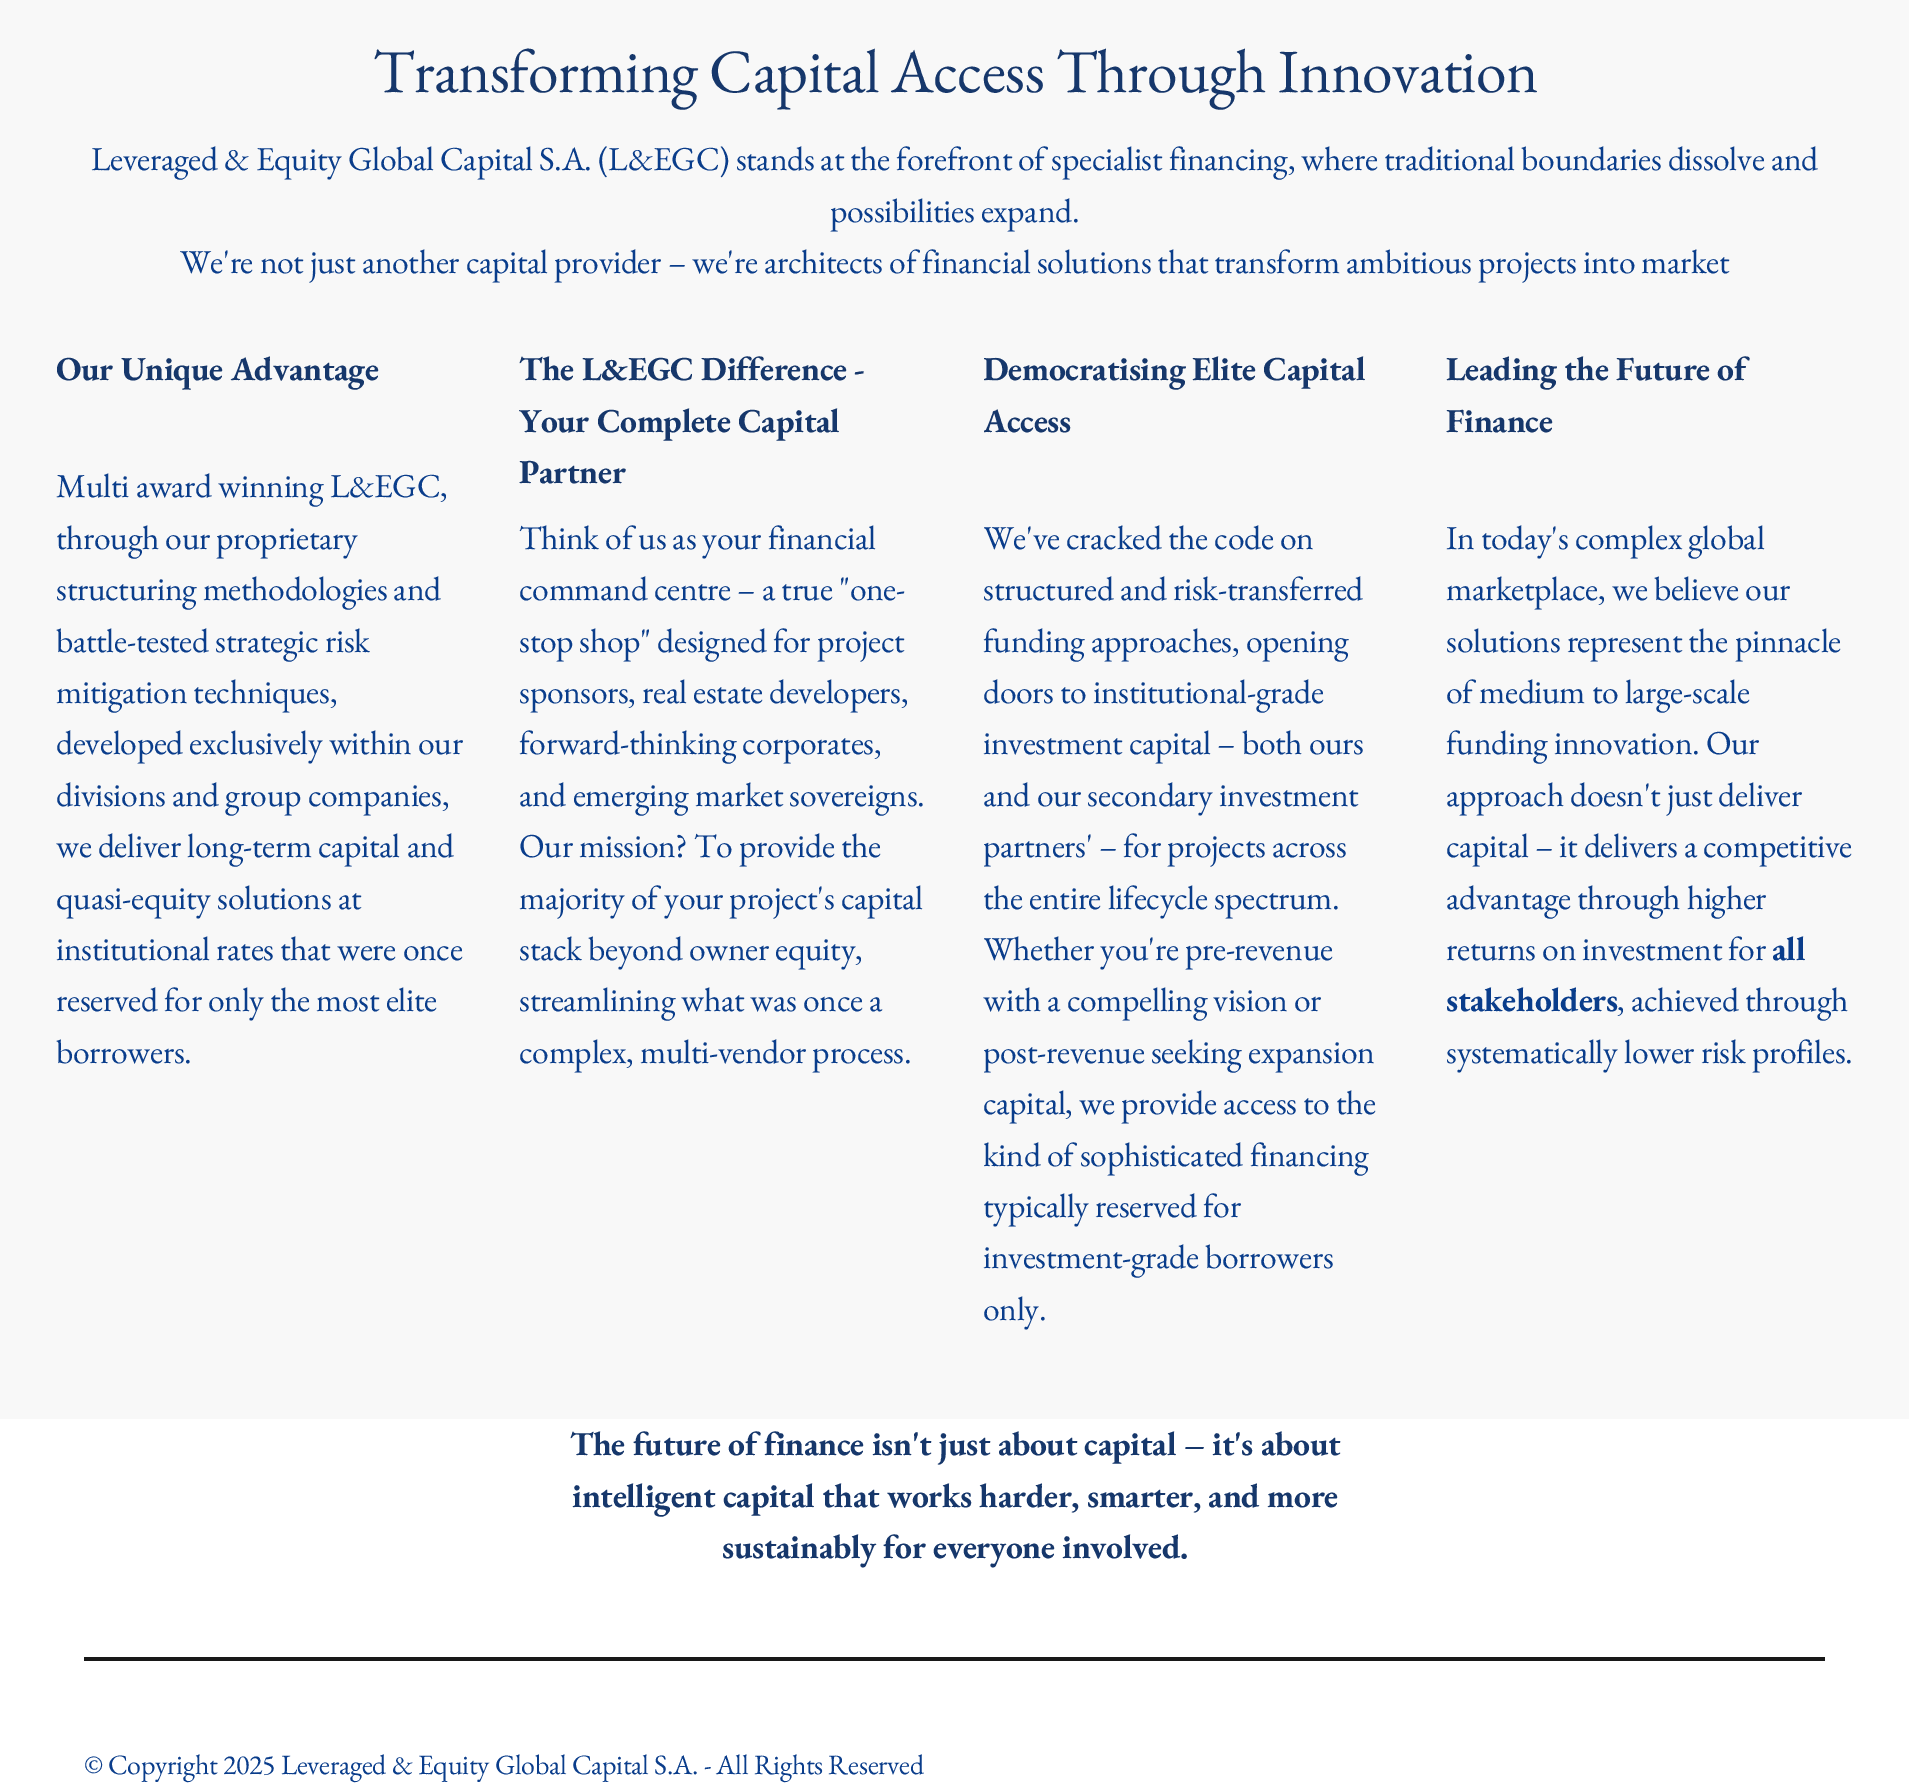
%!PS
<< /PageSize [1909 1786] >> setpagedevice
/mt/moveto load def
/gs/gsave load def
/gr/grestore load def
/co { dup -16 bitshift 255 div exch dup -8 bitshift 255 and 255 div exch 255 and 255 div setrgbcolor } def
/fn { [ exch dup neg 0 0 3 -1 roll 0 0 ] selectfont } def
/bx { co rectfill } def
0 1786 translate 1 -1 scale
4 setmiterlimit
0 0 1909 1786 16#FFFFFF bx
0 0 1909 1419 16#F8F8F8 bx
84 1657 1741 4 16#181818 bx
/EBGaramond-Regular 61.6 fn
16#16376B co
373 92 mt -.6 0 (Transforming Capital Access Through Innovation) ashow
/EBGaramond-Regular 33.6 fn
16#0A3D8B co
91 170 mt -.34 0 (Leveraged & Equity Global Capital S.A. \(L&EGC\) stands at the forefront of specialist financing, where traditional boundaries dissolve and) ashow
830 222 mt -.34 0 (possibilities expand.) ashow
180 273 mt -.34 0 (We're not just another capital provider – we're architects of financial solutions that transform ambitious projects into market) ashow
/EBGaramond-Bold 33.6 fn
16#16376B co
56 380 mt -.34 0 (Our Unique Advantage) ashow
/EBGaramond-Regular 33.6 fn
16#0A3D8B co
56 497 mt -.34 0 (Multi award winning L&EGC,) ashow
56 549 mt -.34 0 (through our proprietary) ashow
56 600 mt -.34 0 (structuring methodologies and) ashow
56 652 mt -.34 0 (battle-tested strategic risk) ashow
56 703 mt -.34 0 (mitigation techniques,) ashow
56 754 mt -.34 0 (developed exclusively within our) ashow
56 806 mt -.34 0 (divisions and group companies,) ashow
56 857 mt -.34 0 (we deliver long-term capital and) ashow
56 909 mt -.34 0 (quasi-equity solutions at) ashow
56 960 mt -.34 0 (institutional rates that were once) ashow
56 1011 mt -.34 0 (reserved for only the most elite) ashow
56 1063 mt -.34 0 (borrowers.) ashow
/EBGaramond-Bold 33.6 fn
16#16376B co
519 380 mt -.34 0 (The L&EGC Difference -) ashow
519 432 mt -.34 0 (Your Complete Capital) ashow
519 483 mt -.34 0 (Partner) ashow
/EBGaramond-Regular 33.6 fn
16#0A3D8B co
519 549 mt -.34 0 (Think of us as your financial) ashow
519 600 mt -.34 0 (command centre – a true "one-) ashow
519 652 mt -.34 0 (stop shop" designed for project) ashow
519 703 mt -.34 0 (sponsors, real estate developers,) ashow
519 754 mt -.34 0 (forward-thinking corporates,) ashow
519 806 mt -.34 0 (and emerging market sovereigns.) ashow
519 857 mt -.34 0 (Our mission? To provide the) ashow
519 909 mt -.34 0 (majority of your project's capital) ashow
519 960 mt -.34 0 (stack beyond owner equity,) ashow
519 1011 mt -.34 0 (streamlining what was once a) ashow
519 1063 mt -.34 0 (complex, multi-vendor process.) ashow
gs
984 343 406 1020 rectclip
/EBGaramond-Bold 33.6 fn
16#16376B co
983 380 mt -.34 0 (Democratising) ashow
gr
/EBGaramond-Bold 33.6 fn
16#16376B co
1192 380 mt -.34 0 (Elite Capital) ashow
gs
984 343 406 1020 rectclip
983 432 mt -.34 0 (Access) ashow
/EBGaramond-Regular 33.6 fn
16#0A3D8B co
983 549 mt -.34 0 (We've cracked the code on) ashow
983 600 mt -.34 0 (structured and risk-transferred) ashow
gr
/EBGaramond-Regular 33.6 fn
16#0A3D8B co
983 652 mt -.34 0 (funding approaches, opening) ashow
gs
984 343 406 1020 rectclip
983 703 mt -.34 0 (doors to institutional-grade) ashow
gr
983 754 mt -.34 0 (investment capital – both ours) ashow
983 806 mt -.34 0 (and our secondary investment) ashow
gs
984 343 406 1020 rectclip
983 857 mt -.34 0 (partners' – for projects across) ashow
gr
983 909 mt -.34 0 (the entire lifecycle spectrum.) ashow
gs
984 343 406 1020 rectclip
983 960 mt -.34 0 (Whether you're pre-revenue) ashow
gr
983 1011 mt -.34 0 (with a compelling vision or) ashow
gs
984 343 406 1020 rectclip
983 1063 mt -.34 0 (post-revenue seeking expansion) ashow
gr
983 1114 mt -.34 0 (capital, we provide access to the) ashow
gs
984 343 406 1020 rectclip
983 1166 mt -.34 0 (kind of sophisticated financing) ashow
gr
983 1217 mt -.34 0 (typically reserved for) ashow
983 1268 mt -.34 0 (investment-grade borrowers) ashow
gs
984 343 406 1020 rectclip
983 1320 mt -.34 0 (only.) ashow
gr
/EBGaramond-Bold 33.6 fn
16#16376B co
1446 380 mt -.34 0 (Leading the Future of) ashow
1446 432 mt -.34 0 (Finance) ashow
/EBGaramond-Regular 33.6 fn
16#0A3D8B co
1446 549 mt -.34 0 (In today's complex global) ashow
1446 600 mt -.34 0 (marketplace, we believe our) ashow
1446 652 mt -.34 0 (solutions represent the pinnacle) ashow
1446 703 mt -.34 0 (of medium to large-scale) ashow
1446 754 mt -.34 0 (funding innovation. Our) ashow
1446 806 mt -.34 0 (approach doesn't just deliver) ashow
1446 857 mt -.34 0 (capital – it delivers a competitive) ashow
1446 909 mt -.34 0 (advantage through higher) ashow
1446 960 mt -.34 0 (returns on investment for) ashow
/EBGaramond-Bold 33.6 fn
1772 960 mt -.34 0 (all) ashow
1446 1011 mt -.34 0 (stakeholders) ashow
/EBGaramond-Regular 33.6 fn
1617 1011 mt -.34 0 (, achieved through) ashow
1446 1063 mt -.34 0 (systematically lower risk profiles.) ashow
/EBGaramond-Bold 33.6 fn
16#16376B co
570 1455 mt -.34 0 (The future of finance isn't just about capital – it's about) ashow
572 1507 mt -.34 0 (intelligent capital that works harder, smarter, and more) ashow
722 1558 mt -.34 0 (sustainably for everyone involved.) ashow
/EBGaramond-Regular 28 fn
16#0A3D8B co
84 1774 mt -.28 0 (© Copyright 2025 Leveraged & Equity Global Capital S.A. - All Rights Reserved) ashow
showpage
